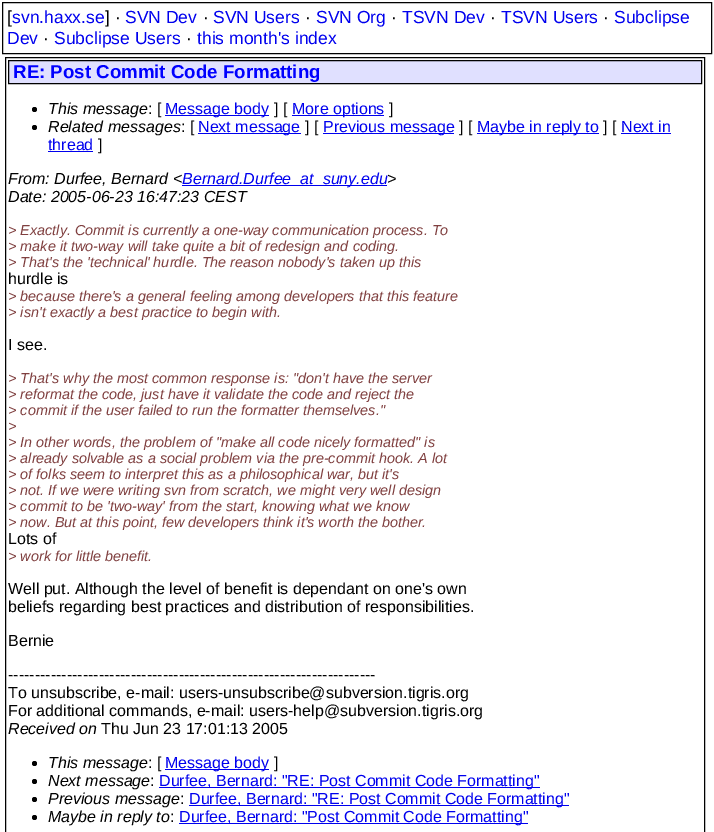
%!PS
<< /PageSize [714 832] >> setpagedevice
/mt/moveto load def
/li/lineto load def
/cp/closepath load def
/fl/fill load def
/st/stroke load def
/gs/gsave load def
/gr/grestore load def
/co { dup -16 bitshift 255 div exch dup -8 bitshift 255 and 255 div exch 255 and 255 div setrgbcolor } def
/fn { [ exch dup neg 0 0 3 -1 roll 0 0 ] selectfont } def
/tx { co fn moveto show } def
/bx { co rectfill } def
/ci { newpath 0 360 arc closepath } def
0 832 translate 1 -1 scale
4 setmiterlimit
0 0 714 832 16#FFFFFF bx
16#000000 co
2.5 2.5 709 51 rectstroke
5.5 57.5 699 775 rectstroke
16#E0E0FF co
8.5 60.5 mt 701.5 60.5 li 701.5 83.5 li 8.5 83.5 li cp gs fl gr
16#000000 co
st
34.5 109.5 2.5 ci fl
165 115 104 1 16#0000EE bx
292 115 92 1 16#0000EE bx
16#000000 co
34.5 127.5 2.5 ci fl
198 133 103 1 16#0000EE bx
323 133 131 1 16#0000EE bx
477 133 122 1 16#0000EE bx
621 133 50 1 16#0000EE bx
48 151 45 1 16#0000EE bx
182 185 205 1 16#0000EE bx
16#000000 co
34.5 763.5 2.5 ci fl
165 769 104 1 16#0000EE bx
16#000000 co
34.5 781.5 2.5 ci fl
159 787 381 1 16#0000EE bx
16#000000 co
34.5 799.5 2.5 ci fl
189 805 380 1 16#0000EE bx
16#000000 co
34.5 817.5 2.5 ci fl
179 823 349 1 16#0000EE bx
([) 7 23 /LiberationSans-Regular 17.5 16#000000 tx
(svn.haxx.se) 12 23 /LiberationSans-Regular 17.5 16#0000EE tx
(] ·) 105 23 /LiberationSans-Regular 17.5 16#000000 tx
(SVN Dev) 125 23 /LiberationSans-Regular 17.5 16#0000EE tx
(·) 203 23 /LiberationSans-Regular 17.5 16#000000 tx
(SVN Users) 213 23 /LiberationSans-Regular 17.5 16#0000EE tx
(·) 305 23 /LiberationSans-Regular 17.5 16#000000 tx
(SVN Org) 316 23 /LiberationSans-Regular 17.5 16#0000EE tx
(·) 391 23 /LiberationSans-Regular 17.5 16#000000 tx
(TSVN Dev) 402 23 /LiberationSans-Regular 17.5 16#0000EE tx
(·) 490 23 /LiberationSans-Regular 17.5 16#000000 tx
(TSVN Users) 501 23 /LiberationSans-Regular 17.5 16#0000EE tx
(·) 603 23 /LiberationSans-Regular 17.5 16#000000 tx
(Subclipse) 614 23 /LiberationSans-Regular 17.5 16#0000EE tx
(Dev) 7 44 /LiberationSans-Regular 17.5 16#0000EE tx
(·) 43 44 /LiberationSans-Regular 17.5 16#000000 tx
(Subclipse Users) 54 44 /LiberationSans-Regular 17.5 16#0000EE tx
(·) 186 44 /LiberationSans-Regular 17.5 16#000000 tx
(this month's index) 197 44 /LiberationSans-Regular 17.5 16#0000EE tx
(RE: Post Commit Code Formatting) 13 78 /LiberationSans-Bold 18.7 16#0000FF tx
(This message) 48 114 /LiberationSans-Italic 16 16#000000 tx
(: [) 148 114 /LiberationSans-Regular 16 16#000000 tx
(Message body) 165 114 /LiberationSans-Regular 16 16#0000EE tx
(] [) 274 114 /LiberationSans-Regular 16 16#000000 tx
(More options) 292 114 /LiberationSans-Regular 16 16#0000EE tx
(]) 389 114 /LiberationSans-Regular 16 16#000000 tx
(Related messages) 48 132 /LiberationSans-Italic 16 16#000000 tx
(: [) 181 132 /LiberationSans-Regular 16 16#000000 tx
(Next message) 198 132 /LiberationSans-Regular 16 16#0000EE tx
(] [) 305 132 /LiberationSans-Regular 16 16#000000 tx
(Previous message) 323 132 /LiberationSans-Regular 16 16#0000EE tx
(] [) 459 132 /LiberationSans-Regular 16 16#000000 tx
(Maybe in reply to) 477 132 /LiberationSans-Regular 16 16#0000EE tx
(] [) 603 132 /LiberationSans-Regular 16 16#000000 tx
(Next in) 621 132 /LiberationSans-Regular 16 16#0000EE tx
(thread) 48 150 /LiberationSans-Regular 16 16#0000EE tx
(]) 98 150 /LiberationSans-Regular 16 16#000000 tx
(From: Durfee, Bernard <) 8 184 /LiberationSans-Italic 16 16#000000 tx
(Bernard.Durfee_at_suny.edu) 182 184 /LiberationSans-Italic 16 16#0000EE tx
(>) 387 184 /LiberationSans-Italic 16 16#000000 tx
(Date: 2005-06-23 16:47:23 CEST) 8 202 /LiberationSans-Italic 16 16#000000 tx
(> Exactly. Commit is currently a one-way communication process. To) 8 235 /LiberationSans-Italic 14.4 16#804040 tx
(> make it two-way will take quite a bit of redesign and coding.) 8 251 /LiberationSans-Italic 14.4 16#804040 tx
(> That's the 'technical' hurdle. The reason nobody's taken up this) 8 267 /LiberationSans-Italic 14.4 16#804040 tx
(hurdle is) 8 284 /LiberationSans-Regular 16 16#000000 tx
(> because there's a general feeling among developers that this feature) 8 301 /LiberationSans-Italic 14.4 16#804040 tx
(> isn't exactly a best practice to begin with.) 8 317 /LiberationSans-Italic 14.4 16#804040 tx
(I see.) 8 350 /LiberationSans-Regular 16 16#000000 tx
(> That's why the most common response is: "don't have the server) 8 383 /LiberationSans-Italic 14.4 16#804040 tx
(> reformat the code, just have it validate the code and reject the) 8 399 /LiberationSans-Italic 14.4 16#804040 tx
(> commit if the user failed to run the formatter themselves.") 8 415 /LiberationSans-Italic 14.4 16#804040 tx
(>) 8 431 /LiberationSans-Italic 14.4 16#804040 tx
(> In other words, the problem of "make all code nicely formatted" is) 8 447 /LiberationSans-Italic 14.4 16#804040 tx
(> already solvable as a social problem via the pre-commit hook. A lot) 8 463 /LiberationSans-Italic 14.4 16#804040 tx
(> of folks seem to interpret this as a philosophical war, but it's) 8 479 /LiberationSans-Italic 14.4 16#804040 tx
(> not. If we were writing svn from scratch, we might very well design) 8 495 /LiberationSans-Italic 14.4 16#804040 tx
(> commit to be 'two-way' from the start, knowing what we know) 8 511 /LiberationSans-Italic 14.4 16#804040 tx
(> now. But at this point, few developers think it's worth the bother.) 8 527 /LiberationSans-Italic 14.4 16#804040 tx
(Lots of) 8 544 /LiberationSans-Regular 16 16#000000 tx
(> work for little benefit.) 8 561 /LiberationSans-Italic 14.4 16#804040 tx
(Well put. Although the level of benefit is dependant on one's own) 8 594 /LiberationSans-Regular 16 16#000000 tx
(beliefs regarding best practices and distribution of responsibilities.) 8 612 /LiberationSans-Regular 16 16#000000 tx
(Bernie) 8 646 /LiberationSans-Regular 16 16#000000 tx
(---------------------------------------------------------------------) 8 680 /LiberationSans-Regular 16 16#000000 tx
(To unsubscribe, e-mail: users-unsubscribe@subversion.tigris.org) 8 698 /LiberationSans-Regular 16 16#000000 tx
(For additional commands, e-mail: users-help@subversion.tigris.org) 8 716 /LiberationSans-Regular 16 16#000000 tx
(Received on) 8 734 /LiberationSans-Italic 16 16#000000 tx
(Thu Jun 23 17:01:13 2005) 101 734 /LiberationSans-Regular 16 16#000000 tx
(This message) 48 768 /LiberationSans-Italic 16 16#000000 tx
(: [) 148 768 /LiberationSans-Regular 16 16#000000 tx
(Message body) 165 768 /LiberationSans-Regular 16 16#0000EE tx
(]) 274 768 /LiberationSans-Regular 16 16#000000 tx
(Next message) 48 786 /LiberationSans-Italic 16 16#000000 tx
(:) 150 786 /LiberationSans-Regular 16 16#000000 tx
(Durfee, Bernard: "RE: Post Commit Code Formatting") 159 786 /LiberationSans-Regular 16 16#0000EE tx
(Previous message) 48 804 /LiberationSans-Italic 16 16#000000 tx
(:) 180 804 /LiberationSans-Regular 16 16#000000 tx
(Durfee, Bernard: "RE: Post Commit Code Formatting") 189 804 /LiberationSans-Regular 16 16#0000EE tx
(Maybe in reply to) 48 822 /LiberationSans-Italic 16 16#000000 tx
(:) 170 822 /LiberationSans-Regular 16 16#000000 tx
(Durfee, Bernard: "Post Commit Code Formatting") 179 822 /LiberationSans-Regular 16 16#0000EE tx
showpage
